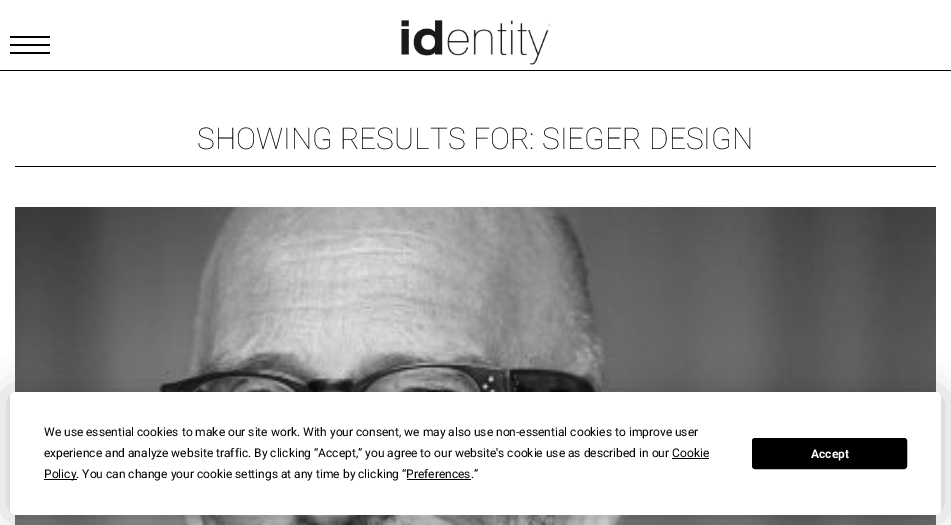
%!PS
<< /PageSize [951 525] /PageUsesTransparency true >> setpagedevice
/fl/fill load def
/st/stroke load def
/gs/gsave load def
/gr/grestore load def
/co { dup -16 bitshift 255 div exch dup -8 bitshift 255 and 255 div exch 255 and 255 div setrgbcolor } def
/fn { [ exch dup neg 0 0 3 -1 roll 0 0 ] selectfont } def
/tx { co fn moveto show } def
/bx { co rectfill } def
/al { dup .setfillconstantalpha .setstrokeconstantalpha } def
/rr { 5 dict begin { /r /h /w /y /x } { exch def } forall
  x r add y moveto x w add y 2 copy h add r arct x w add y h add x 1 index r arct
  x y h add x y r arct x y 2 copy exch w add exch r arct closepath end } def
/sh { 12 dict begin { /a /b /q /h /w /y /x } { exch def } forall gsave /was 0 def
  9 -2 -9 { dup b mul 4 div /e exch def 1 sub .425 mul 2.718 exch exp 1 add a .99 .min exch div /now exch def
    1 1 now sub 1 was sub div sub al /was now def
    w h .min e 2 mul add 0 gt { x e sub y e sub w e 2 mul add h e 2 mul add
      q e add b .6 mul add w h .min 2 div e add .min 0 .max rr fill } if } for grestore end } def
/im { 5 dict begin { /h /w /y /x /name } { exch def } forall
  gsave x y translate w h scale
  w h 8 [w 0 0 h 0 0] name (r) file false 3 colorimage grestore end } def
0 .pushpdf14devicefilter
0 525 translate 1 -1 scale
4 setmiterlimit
0 0 951 525 16#FFFFFF bx
0 70 951 1 16#000000 bx
10 36 40 2 16#000000 bx
10 44 40 2 16#000000 bx
10 52 40 2 16#000000 bx
(media/1.raw) 401 20 150 45 im
15 166 921 1 16#000000 bx
(media/2.raw) 15 207 921 318 im
10 392 931 123 5 17.5 .25 sh
16#FFFFFF co
10 392 931 123 5 rr fl
672 458 37 1 16#000000 bx
44 479 33 1 16#000000 bx
407 479 64 1 16#000000 bx
752.5 438.5 154 30 2.5 rr gs fl gr
st
(SHOWING RESULTS FOR: SIEGER DESIGN) 197 149 /Roboto-Thin 30 16#000000 tx
(We use essential cookies to make our site work. With your consent, we may also use non-essential cookies to improve user) 44 436 /Roboto-Regular 12 16#000000 tx
(experience and analyze website traffic. By clicking “Accept,” you agree to our website's cookie use as described in our Cookie) 44 457 /Roboto-Regular 12 16#000000 tx
(Policy. You can change your cookie settings at any time by clicking “Preferences.”) 44 478 /Roboto-Regular 12 16#000000 tx
(Accept) 811 458 /Roboto-Bold 12 16#FFFFFF tx
.poppdf14devicefilter showpage
